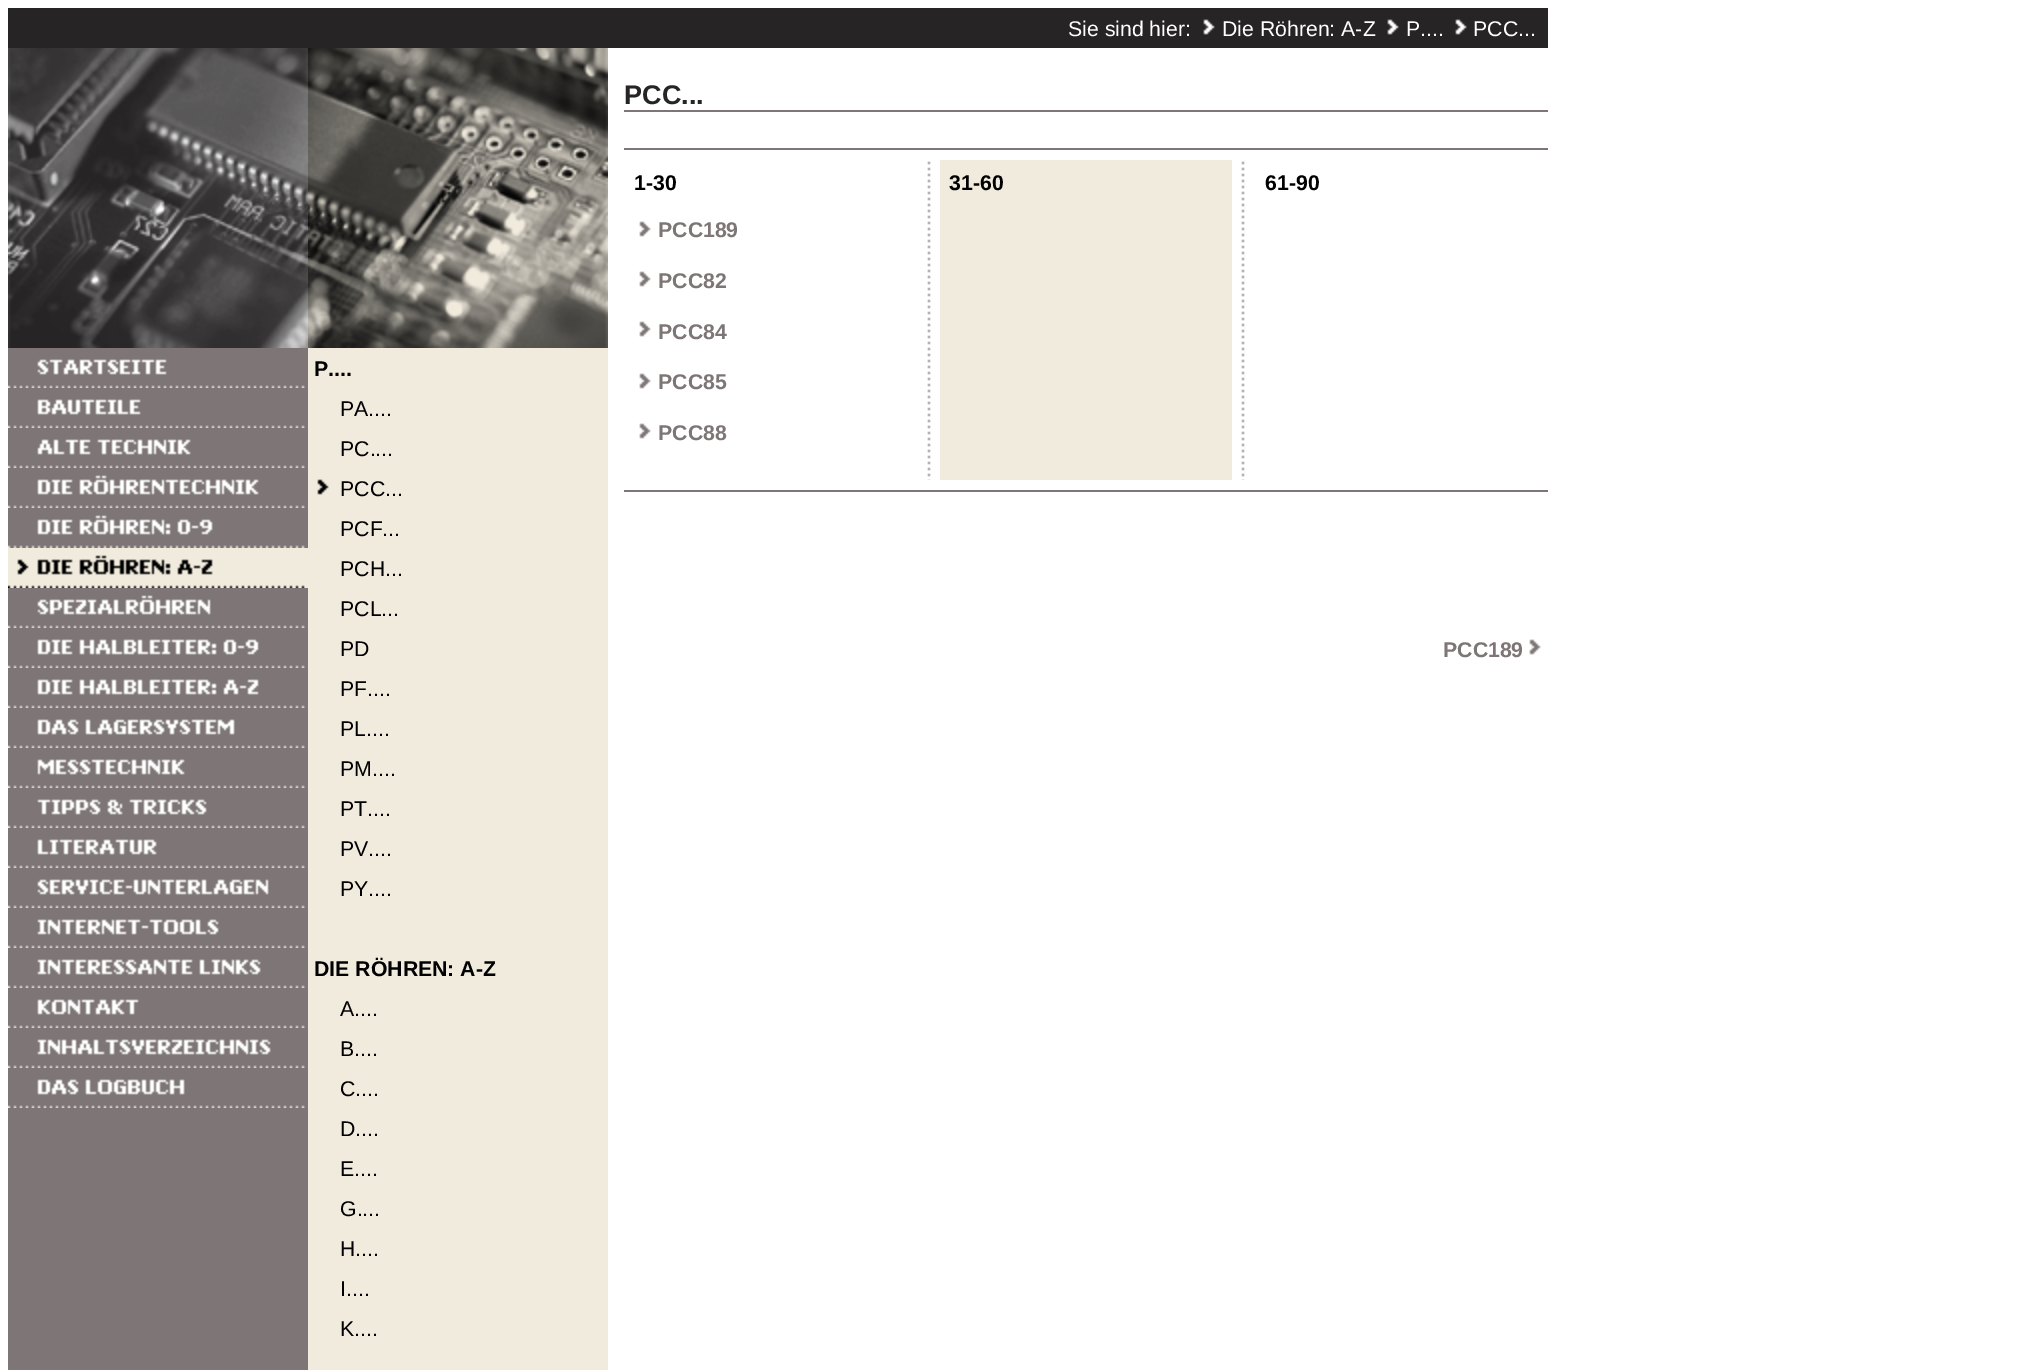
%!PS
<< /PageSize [2018 1370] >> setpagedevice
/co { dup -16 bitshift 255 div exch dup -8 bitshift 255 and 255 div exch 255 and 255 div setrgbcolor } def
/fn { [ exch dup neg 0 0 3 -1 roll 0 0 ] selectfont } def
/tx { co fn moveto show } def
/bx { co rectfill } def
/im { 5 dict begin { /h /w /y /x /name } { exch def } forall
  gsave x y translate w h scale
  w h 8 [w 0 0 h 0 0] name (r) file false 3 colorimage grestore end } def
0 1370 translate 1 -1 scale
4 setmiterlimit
0 0 2018 1370 16#FFFFFF bx
8 8 1540 40 16#262424 bx
(media/1.raw) 1203 19 12 16 im
(media/1.raw) 1387 19 12 16 im
(media/1.raw) 1455 19 12 16 im
8 348 300 1022 16#7E7676 bx
(media/2.raw) 8 48 300 300 im
(media/3.raw) 8 359 297 29 im
(media/4.raw) 8 399 297 29 im
(media/5.raw) 8 439 297 29 im
(media/6.raw) 8 475 297 33 im
(media/7.raw) 8 515 297 33 im
(media/8.raw) 8 548 300 40 im
(media/9.raw) 8 595 297 33 im
(media/10.raw) 8 639 297 29 im
(media/11.raw) 8 679 297 29 im
(media/12.raw) 8 719 297 29 im
(media/13.raw) 8 759 297 29 im
(media/14.raw) 8 799 297 29 im
(media/15.raw) 8 839 297 29 im
(media/16.raw) 8 879 297 29 im
(media/17.raw) 8 919 297 29 im
(media/18.raw) 8 959 297 29 im
(media/19.raw) 8 999 297 29 im
(media/20.raw) 8 1039 297 29 im
(media/21.raw) 8 1079 297 29 im
308 348 300 1022 16#F1EBDE bx
(media/22.raw) 308 48 300 300 im
(media/23.raw) 317 479 12 16 im
624 110 924 2 16#7E7676 bx
624 148 924 2 16#7E7676 bx
(media/24.raw) 639 221 12 16 im
(media/24.raw) 639 271 12 16 im
(media/24.raw) 639 321 12 16 im
(media/24.raw) 639 373 12 16 im
(media/24.raw) 639 423 12 16 im
(media/25.raw) 927 161 4 319 im
940 160 292 320 16#F1EBDE bx
(media/25.raw) 1241 161 4 319 im
624 490 924 2 16#7E7676 bx
(media/24.raw) 1529 639 12 16 im
(Sie sind hier:) 1068 36 /LiberationSans-Regular 21.25 16#FFFFFF tx
(Die Röhren: A-Z) 1222 36 /LiberationSans-Regular 21.25 16#FFFFFF tx
(P....) 1406 36 /LiberationSans-Regular 21.25 16#FFFFFF tx
(PCC...) 1473 36 /LiberationSans-Regular 21.25 16#FFFFFF tx
(P....) 314 376 /LiberationSans-Bold 21.25 16#000000 tx
(PA....) 340 416 /LiberationSans-Regular 21.25 16#000000 tx
(PC....) 340 456 /LiberationSans-Regular 21.25 16#000000 tx
(PCC...) 340 496 /LiberationSans-Regular 21.25 16#000000 tx
(PCF...) 340 536 /LiberationSans-Regular 21.25 16#000000 tx
(PCH...) 340 576 /LiberationSans-Regular 21.25 16#000000 tx
(PCL...) 340 616 /LiberationSans-Regular 21.25 16#000000 tx
(PD) 340 656 /LiberationSans-Regular 21.25 16#000000 tx
(PF....) 340 696 /LiberationSans-Regular 21.25 16#000000 tx
(PL....) 340 736 /LiberationSans-Regular 21.25 16#000000 tx
(PM....) 340 776 /LiberationSans-Regular 21.25 16#000000 tx
(PT....) 340 816 /LiberationSans-Regular 21.25 16#000000 tx
(PV....) 340 856 /LiberationSans-Regular 21.25 16#000000 tx
(PY....) 340 896 /LiberationSans-Regular 21.25 16#000000 tx
(DIE RÖHREN: A-Z) 314 976 /LiberationSans-Bold 21.25 16#000000 tx
(A....) 340 1016 /LiberationSans-Regular 21.25 16#000000 tx
(B....) 340 1056 /LiberationSans-Regular 21.25 16#000000 tx
(C....) 340 1096 /LiberationSans-Regular 21.25 16#000000 tx
(D....) 340 1136 /LiberationSans-Regular 21.25 16#000000 tx
(E....) 340 1176 /LiberationSans-Regular 21.25 16#000000 tx
(G....) 340 1216 /LiberationSans-Regular 21.25 16#000000 tx
(H....) 340 1256 /LiberationSans-Regular 21.25 16#000000 tx
(I....) 340 1296 /LiberationSans-Regular 21.25 16#000000 tx
(K....) 340 1336 /LiberationSans-Regular 21.25 16#000000 tx
(PCC...) 624 104 /LiberationSans-Bold 27 16#262424 tx
(1-30) 634 190 /LiberationSans-Bold 21.25 16#000000 tx
(PCC189) 658 237 /LiberationSans-Bold 21.25 16#7E7676 tx
(PCC82) 658 288 /LiberationSans-Bold 21.25 16#7E7676 tx
(PCC84) 658 339 /LiberationSans-Bold 21.25 16#7E7676 tx
(PCC85) 658 389 /LiberationSans-Bold 21.25 16#7E7676 tx
(PCC88) 658 440 /LiberationSans-Bold 21.25 16#7E7676 tx
(31-60) 949 190 /LiberationSans-Bold 21.25 16#000000 tx
(61-90) 1265 190 /LiberationSans-Bold 21.25 16#000000 tx
(PCC189) 1443 657 /LiberationSans-Bold 21.25 16#7E7676 tx
showpage
